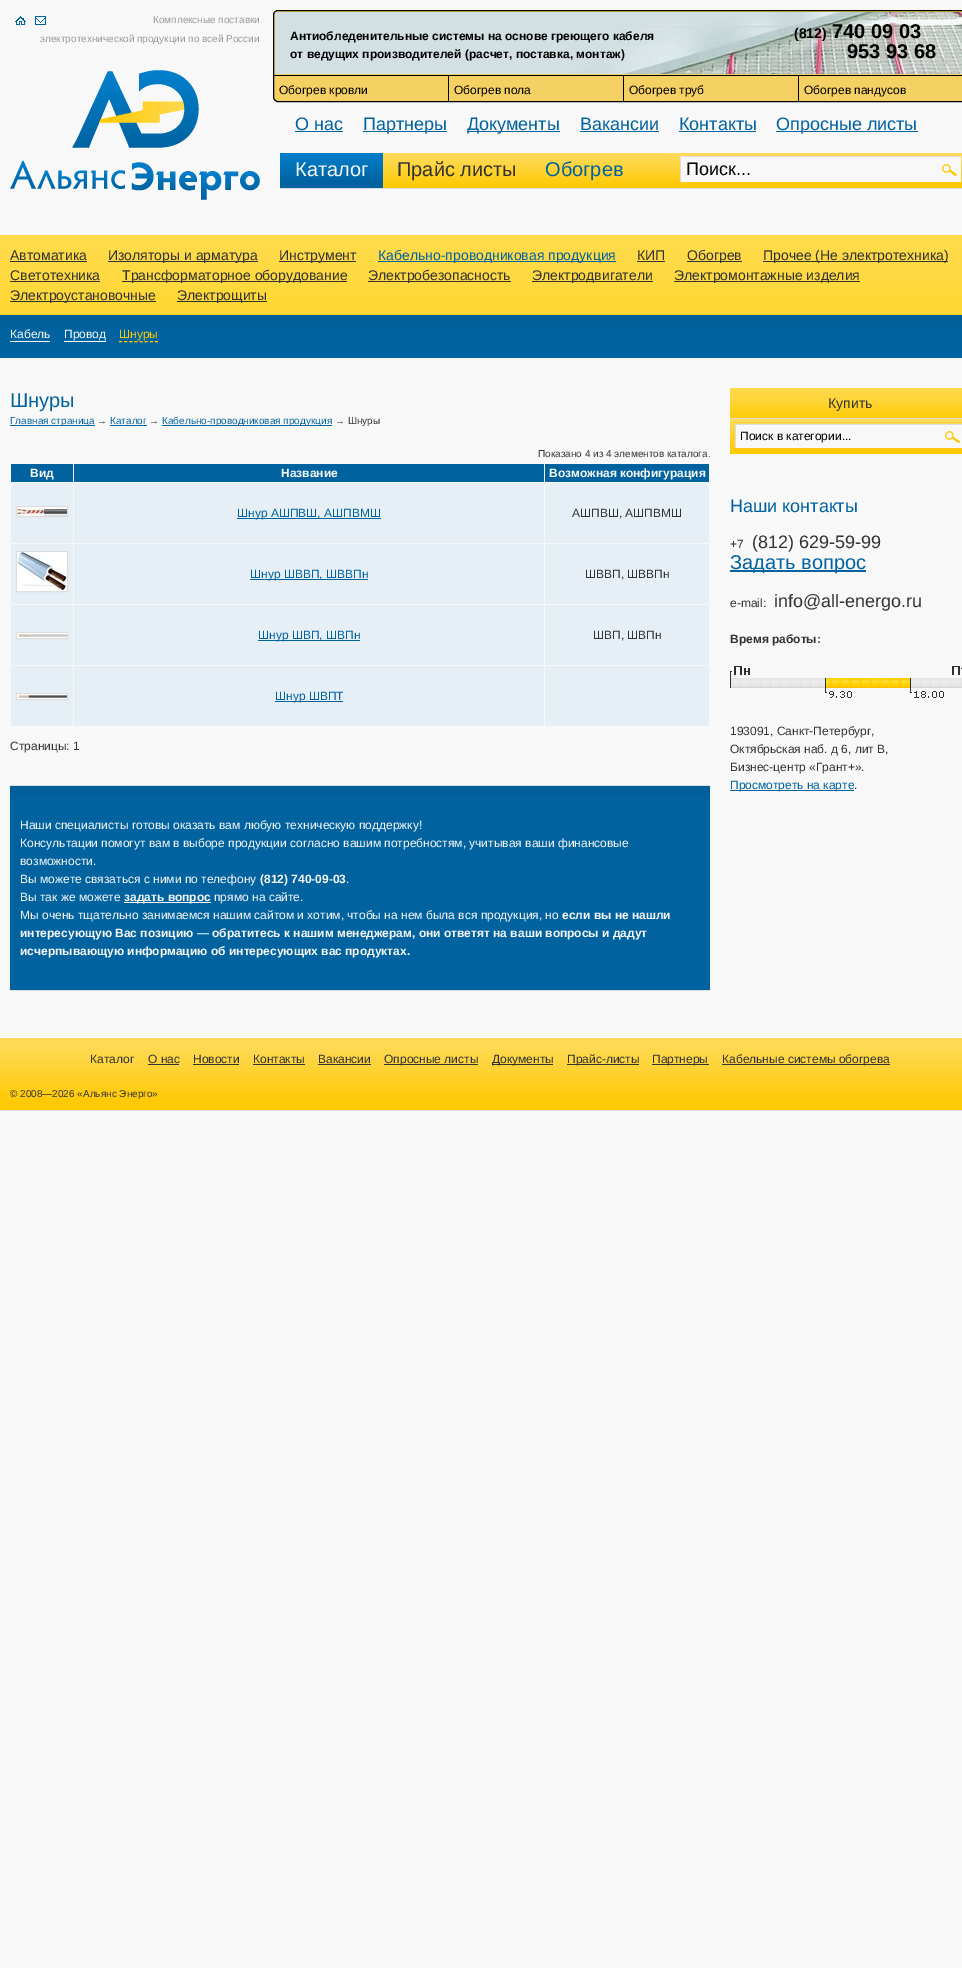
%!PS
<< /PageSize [962 1968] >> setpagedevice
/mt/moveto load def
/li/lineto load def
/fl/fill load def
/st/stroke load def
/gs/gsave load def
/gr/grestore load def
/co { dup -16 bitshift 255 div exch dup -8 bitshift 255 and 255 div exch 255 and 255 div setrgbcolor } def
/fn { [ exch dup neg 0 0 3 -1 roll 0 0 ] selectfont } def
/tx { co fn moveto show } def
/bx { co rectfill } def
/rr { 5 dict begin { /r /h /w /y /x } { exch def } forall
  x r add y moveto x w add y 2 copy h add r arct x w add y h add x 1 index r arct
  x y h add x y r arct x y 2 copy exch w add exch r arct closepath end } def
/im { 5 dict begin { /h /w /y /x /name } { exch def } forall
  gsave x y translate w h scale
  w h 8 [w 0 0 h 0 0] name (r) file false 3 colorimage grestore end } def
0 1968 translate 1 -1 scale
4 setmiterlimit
0 0 962 1968 16#F8F8F8 bx
(media/1.raw) 15 16 11 9 im
(media/2.raw) 35 16 11 9 im
16#F5D062 co
273.5 10.5 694 91 4.5 rr gs fl gr
16#000000 co
st
(media/3.raw) 275 12 687 62 im
274 75 688 1 16#000000 bx
448 75 1 27 16#000000 bx
623 75 1 27 16#000000 bx
798 75 1 27 16#000000 bx
(media/4.raw) 10 70 250 130 im
295 131 48 1 16#0063A0 bx
363 131 84 1 16#0063A0 bx
467 131 93 1 16#0063A0 bx
580 131 79 1 16#0063A0 bx
679 131 77 1 16#0063A0 bx
776 131 142 1 16#0063A0 bx
383 187 579 1 16#FFC800 bx
(media/5.raw) 383 153 579 34 im
280 188 682 1 16#DDDDDD bx
(media/6.raw) 280 153 103 27 im
280 180 103 8 16#0063A0 bx
681 157 280 25 16#F8F8F8 bx
680 156 281 1 16#DDDDDD bx
680 156 1 26 16#DDDDDD bx
(media/7.raw) 942 164 15 12 im
(media/8.raw) 0 235 962 80 im
10 261 77 1 16#333333 bx
108 261 150 1 16#333333 bx
279 261 77 1 16#333333 bx
378 261 238 1 16#0063A0 bx
637 261 28 1 16#333333 bx
687 261 55 1 16#333333 bx
763 261 185 1 16#333333 bx
10 281 90 1 16#333333 bx
122 281 225 1 16#333333 bx
368 281 143 1 16#333333 bx
532 281 121 1 16#333333 bx
674 281 186 1 16#333333 bx
10 301 146 1 16#333333 bx
177 301 90 1 16#333333 bx
0 315 962 43 16#0063A0 bx
(media/9.raw) 0 315 962 11 im
10 341 40 1 16#F8F8F8 bx
64 341 42 1 16#F8F8F8 bx
16#FFC800 co
[3 2.14] 0 setdash
119 341.5 mt 158 341.5 li st
10 425 85 1 16#0063A0 bx
110 425 37 1 16#0063A0 bx
162 425 170 1 16#0063A0 bx
11 464 62 18 16#0063A0 bx
74 464 470 18 16#0063A0 bx
545 464 164 18 16#0063A0 bx
11 483 62 60 16#E5EFF5 bx
16#DDDDDD co
[] 0 setdash
16.5 506.5 51 10 rectstroke
(media/10.raw) 17 507 50 9 im
74 483 470 60 16#E5EFF5 bx
237 518 144 1 16#0063A0 bx
545 483 164 60 16#E5EFF5 bx
11 544 62 60 16#E5EFF5 bx
16#DDDDDD co
16.5 551.5 51 40 rectstroke
(media/11.raw) 17 552 50 39 im
74 544 470 60 16#E5EFF5 bx
250 579 118 1 16#0063A0 bx
545 544 164 60 16#E5EFF5 bx
11 605 62 60 16#E5EFF5 bx
16#DDDDDD co
16.5 632.5 51 6 rectstroke
(media/12.raw) 17 633 50 5 im
74 605 470 60 16#E5EFF5 bx
258 640 102 1 16#0063A0 bx
545 605 164 60 16#E5EFF5 bx
11 666 62 60 16#E5EFF5 bx
16#DDDDDD co
16.5 693.5 51 6 rectstroke
(media/13.raw) 17 694 50 5 im
74 666 470 60 16#E5EFF5 bx
275 701 68 1 16#0063A0 bx
545 666 164 60 16#E5EFF5 bx
10 786 700 204 16#0063A0 bx
(media/14.raw) 10 786 700 11 im
10 785 700 1 16#DDDDDD bx
10 990 700 1 16#DDDDDD bx
124 902 87 1 16#F8F8F8 bx
(media/15.raw) 730 388 232 30 im
730 418 232 1 16#DDDDDD bx
730 453 232 1 16#FFC800 bx
(media/16.raw) 730 419 232 34 im
736 425 226 23 16#F8F8F8 bx
735 424 227 1 16#DDDDDD bx
735 424 1 24 16#DDDDDD bx
(media/7.raw) 945 431 15 12 im
730 570 136 2 16#0063A0 bx
(media/17.raw) 730 666 232 32 im
730 790 124 1 16#0063A0 bx
(media/18.raw) 0 1038 962 72 im
0 1110 962 1 16#DDDDDD bx
148 1064 31 1 16#333333 bx
193 1064 46 1 16#333333 bx
253 1064 52 1 16#333333 bx
318 1064 53 1 16#333333 bx
384 1064 94 1 16#333333 bx
492 1064 61 1 16#333333 bx
567 1064 72 1 16#333333 bx
652 1064 57 1 16#333333 bx
722 1064 168 1 16#333333 bx
(Комплексные поставки) 153 23 /LiberationSans-Regular 10 16#999999 tx
(электротехнической продукции по всей России) 40 42 /LiberationSans-Regular 10 16#999999 tx
(Антиобледенительные системы на основе греющего кабеля) 290 40 /LiberationSans-Bold 12 16#000000 tx
(от ведущих производителей \(расчет, поставка, монтаж\)) 290 58 /LiberationSans-Bold 12 16#000000 tx
(\(812\)) 794 38 /LiberationSans-Bold 14 16#000000 tx
(740 09 03) 832 38 /LiberationSans-Bold 20 16#000000 tx
(953 93 68) 847 58 /LiberationSans-Bold 20 16#000000 tx
(Обогрев кровли) 279 94 /LiberationSans-Regular 12 16#000000 tx
(Обогрев пола) 454 94 /LiberationSans-Regular 12 16#000000 tx
(Обогрев труб) 629 94 /LiberationSans-Regular 12 16#000000 tx
(Обогрев пандусов) 804 94 /LiberationSans-Regular 12 16#000000 tx
(О нас) 295 130 /LiberationSans-Regular 18 16#0063A0 tx
(Партнеры) 363 130 /LiberationSans-Regular 18 16#0063A0 tx
(Документы) 467 130 /LiberationSans-Regular 18 16#0063A0 tx
(Вакансии) 580 130 /LiberationSans-Regular 18 16#0063A0 tx
(Контакты) 679 130 /LiberationSans-Regular 18 16#0063A0 tx
(Опросные листы) 776 130 /LiberationSans-Regular 18 16#0063A0 tx
(Прайс листы) 397 176 /LiberationSans-Regular 20 16#333333 tx
(Обогрев) 545 176 /LiberationSans-Regular 20 16#0063A0 tx
(Каталог) 295 176 /LiberationSans-Regular 20 16#F8F8F8 tx
(Поиск...) 686 175 /LiberationSans-Regular 18 16#000000 tx
(Автоматика) 10 260 /LiberationSans-Regular 14 16#333333 tx
(Изоляторы и арматура) 108 260 /LiberationSans-Regular 14 16#333333 tx
(Инструмент) 279 260 /LiberationSans-Regular 14 16#333333 tx
(Кабельно-проводниковая продукция) 378 260 /LiberationSans-Regular 14 16#0063A0 tx
(КИП) 637 260 /LiberationSans-Regular 14 16#333333 tx
(Обогрев) 687 260 /LiberationSans-Regular 14 16#333333 tx
(Прочее \(Не электротехника\)) 763 260 /LiberationSans-Regular 14 16#333333 tx
(Светотехника) 10 280 /LiberationSans-Regular 14 16#333333 tx
(Трансформаторное оборудование) 122 280 /LiberationSans-Regular 14 16#333333 tx
(Электробезопасность) 368 280 /LiberationSans-Regular 14 16#333333 tx
(Электродвигатели) 532 280 /LiberationSans-Regular 14 16#333333 tx
(Электромонтажные изделия) 674 280 /LiberationSans-Regular 14 16#333333 tx
(Электроустановочные) 10 300 /LiberationSans-Regular 14 16#333333 tx
(Электрощиты) 177 300 /LiberationSans-Regular 14 16#333333 tx
(Кабель) 10 338 /LiberationSans-Regular 12 16#F8F8F8 tx
(Провод) 64 338 /LiberationSans-Regular 12 16#F8F8F8 tx
(Шнуры) 119 338 /LiberationSans-Regular 12 16#FFC800 tx
(Шнуры) 10 407 /LiberationSans-Regular 20 16#0063A0 tx
(Главная страница) 10 424 /LiberationSans-Regular 10 16#0063A0 tx
(→) 97 424 /LiberationSans-Regular 10 16#333333 tx
(Каталог) 110 424 /LiberationSans-Regular 10 16#0063A0 tx
(→) 149 424 /LiberationSans-Regular 10 16#333333 tx
(Кабельно-проводниковая продукция) 162 424 /LiberationSans-Regular 10 16#0063A0 tx
(→ Шнуры) 335 424 /LiberationSans-Regular 10 16#333333 tx
(Показано 4 из 4 элементов каталога.) 538 457 /LiberationSans-Regular 10 16#333333 tx
(Вид) 30 477 /LiberationSans-Bold 12 16#F8F8F8 tx
(Название) 281 477 /LiberationSans-Bold 12 16#F8F8F8 tx
(Возможная конфигурация) 549 477 /LiberationSans-Bold 12 16#F8F8F8 tx
(Шнур АШПВШ, АШПВМШ) 237 517 /LiberationSans-Regular 12 16#0063A0 tx
(АШПВШ, АШПВМШ) 572 517 /LiberationSans-Regular 12 16#333333 tx
(Шнур ШВВП, ШВВПн) 250 578 /LiberationSans-Regular 12 16#0063A0 tx
(ШВВП, ШВВПн) 585 578 /LiberationSans-Regular 12 16#333333 tx
(Шнур ШВП, ШВПн) 258 639 /LiberationSans-Regular 12 16#0063A0 tx
(ШВП, ШВПн) 593 639 /LiberationSans-Regular 12 16#333333 tx
(Шнур ШВПТ) 275 700 /LiberationSans-Regular 12 16#0063A0 tx
(Страницы: 1) 10 750 /LiberationSans-Regular 12 16#333333 tx
(Наши специалисты готовы оказать вам любую техническую поддержку!) 20 829 /LiberationSans-Regular 12 16#F8F8F8 tx
(Консультации помогут вам в выборе продукции согласно вашим потребностям, учитывая ваши финансовые) 20 847 /LiberationSans-Regular 12 16#F8F8F8 tx
(возможности.) 20 865 /LiberationSans-Regular 12 16#F8F8F8 tx
(Вы можете связаться с ними по телефону) 20 883 /LiberationSans-Regular 12 16#F8F8F8 tx
(\(812\) 740-09-03) 260 883 /LiberationSans-Bold 12 16#F8F8F8 tx
(.) 346 883 /LiberationSans-Regular 12 16#F8F8F8 tx
(Вы так же можете) 20 901 /LiberationSans-Regular 12 16#F8F8F8 tx
(задать вопрос) 124 901 /LiberationSans-Bold 12 16#F8F8F8 tx
(прямо на сайте.) 214 901 /LiberationSans-Regular 12 16#F8F8F8 tx
(Мы очень тщательно занимаемся нашим сайтом и хотим, чтобы на нем была вся продукция, но) 20 919 /LiberationSans-Regular 12 16#F8F8F8 tx
(если вы не нашли) 562 919 /LiberationSans-Bold 12 16#F8F8F8 tx
(интересующую Вас позицию — обратитесь к нашим менеджерам, они ответят на ваши вопросы и дадут) 20 937 /LiberationSans-Bold 12 16#F8F8F8 tx
(исчерпывающую информацию об интересующих вас продуктах.) 20 955 /LiberationSans-Bold 12 16#F8F8F8 tx
(Купить) 828 408 /LiberationSans-Regular 14 16#333333 tx
(Поиск в категории...) 740 440 /LiberationSans-Regular 12 16#000000 tx
(Наши контакты) 730 512 /LiberationSans-Regular 18 16#0063A0 tx
(+7) 730 548 /LiberationSans-Regular 12 16#333333 tx
(\(812\) 629-59-99) 752 548 /LiberationSans-Regular 18 16#333333 tx
(Задать вопрос) 730 569 /LiberationSans-Regular 20 16#0063A0 tx
(e-mail:) 730 607 /LiberationSans-Regular 12 16#333333 tx
(info@all-energo.ru) 774 607 /LiberationSans-Regular 18 16#333333 tx
(Время работы:) 730 643 /LiberationSans-Bold 12 16#333333 tx
(193091, Санкт-Петербург,) 730 735 /LiberationSans-Regular 12 16#333333 tx
(Октябрьская наб. д 6, лит В,) 730 753 /LiberationSans-Regular 12 16#333333 tx
(Бизнес-центр «Грант+».) 730 771 /LiberationSans-Regular 12 16#333333 tx
(Просмотреть на карте) 730 789 /LiberationSans-Regular 12 16#0063A0 tx
(.) 854 789 /LiberationSans-Regular 12 16#333333 tx
(Каталог) 90 1063 /LiberationSans-Regular 12 16#333333 tx
(О нас) 148 1063 /LiberationSans-Regular 12 16#333333 tx
(Новости) 193 1063 /LiberationSans-Regular 12 16#333333 tx
(Контакты) 253 1063 /LiberationSans-Regular 12 16#333333 tx
(Вакансии) 318 1063 /LiberationSans-Regular 12 16#333333 tx
(Опросные листы) 384 1063 /LiberationSans-Regular 12 16#333333 tx
(Документы) 492 1063 /LiberationSans-Regular 12 16#333333 tx
(Прайс-листы) 567 1063 /LiberationSans-Regular 12 16#333333 tx
(Партнеры) 652 1063 /LiberationSans-Regular 12 16#333333 tx
(Кабельные системы обогрева) 722 1063 /LiberationSans-Regular 12 16#333333 tx
(© 2008—2026 «Альянс Энерго») 10 1097 /LiberationSans-Regular 10 16#333333 tx
showpage
